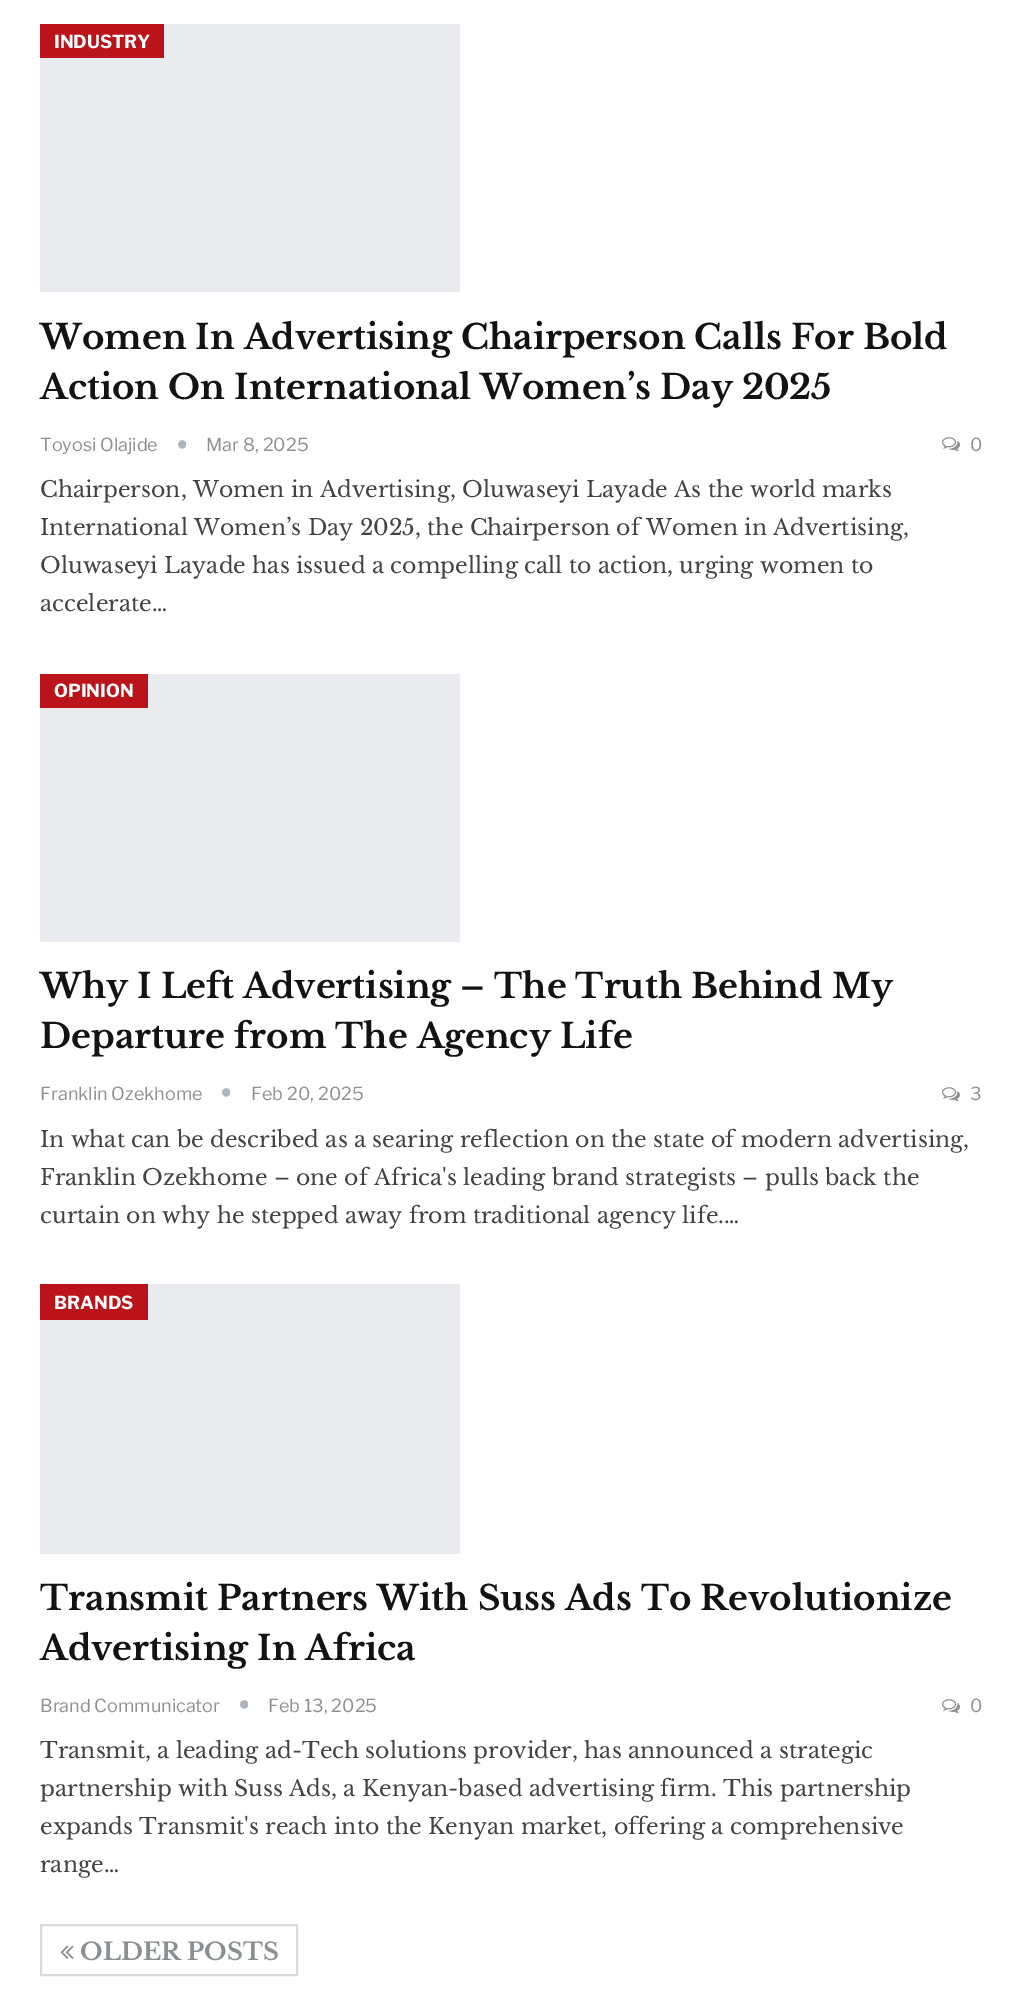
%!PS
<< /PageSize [1022 2016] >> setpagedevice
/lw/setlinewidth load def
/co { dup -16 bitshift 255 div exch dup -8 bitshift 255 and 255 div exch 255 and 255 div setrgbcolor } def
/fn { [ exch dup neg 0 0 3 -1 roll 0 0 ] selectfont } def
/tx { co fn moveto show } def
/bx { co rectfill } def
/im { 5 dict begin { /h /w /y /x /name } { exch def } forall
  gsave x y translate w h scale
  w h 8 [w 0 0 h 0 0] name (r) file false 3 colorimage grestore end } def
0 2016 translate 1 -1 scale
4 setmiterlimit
0 0 1022 2016 16#FFFFFF bx
40 24 420 268 16#E9EBEE bx
40 24 124 34 16#BA141A bx
(media/1.raw) 178 440 8 9 im
(media/2.raw) 942 437 18 15 im
40 674 420 268 16#E9EBEE bx
40 674 108 34 16#BA141A bx
(media/1.raw) 222 1088 8 9 im
(media/2.raw) 942 1087 18 15 im
40 1284 420 270 16#E9EBEE bx
40 1284 108 36 16#BA141A bx
(media/1.raw) 240 1700 8 9 im
(media/2.raw) 942 1699 18 15 im
16#DADADA co
2 lw
41 1925 256 50 rectstroke
(media/3.raw) 60 1945 14 14 im
(INDUSTRY) 54 48 /LibreFranklin-Bold 18 16#FFFFFF tx
(Women In Advertising Chairperson Calls For Bold) 40 349 /LibreBaskerville-Bold 34 16#131313 tx
(Action On International Women’s Day 2025) 40 399 /LibreBaskerville-Bold 34 16#131313 tx
(Toyosi Olajide) 40 451 /LibreFranklin-Regular 18 16#909090 tx
(Mar 8, 2025) 206 451 /LibreFranklin-Regular 18 16#909090 tx
(0) 970 451 /LibreFranklin-Regular 18 16#909090 tx
(Chairperson, Women in Advertising, Oluwaseyi Layade As the world marks) 40 497 /LibreBaskerville-Regular 22 16#434343 tx
(International Women’s Day 2025, the Chairperson of Women in Advertising,) 40 535 /LibreBaskerville-Regular 22 16#434343 tx
(Oluwaseyi Layade has issued a compelling call to action, urging women to) 40 573 /LibreBaskerville-Regular 22 16#434343 tx
(accelerate…) 40 611 /LibreBaskerville-Regular 22 16#434343 tx
(OPINION) 54 697 /LibreFranklin-Bold 18 16#FFFFFF tx
(Why I Left Advertising – The Truth Behind My) 40 998 /LibreBaskerville-Bold 34 16#131313 tx
(Departure from The Agency Life) 40 1048 /LibreBaskerville-Bold 34 16#131313 tx
(Franklin Ozekhome) 40 1100 /LibreFranklin-Regular 18 16#909090 tx
(Feb 20, 2025) 251 1100 /LibreFranklin-Regular 18 16#909090 tx
(3) 970 1100 /LibreFranklin-Regular 18 16#909090 tx
(In what can be described as a searing reflection on the state of modern advertising,) 40 1147 /LibreBaskerville-Regular 22 16#434343 tx
(Franklin Ozekhome – one of Africa's leading brand strategists – pulls back the) 40 1185 /LibreBaskerville-Regular 22 16#434343 tx
(curtain on why he stepped away from traditional agency life.…) 40 1223 /LibreBaskerville-Regular 22 16#434343 tx
(BRANDS) 54 1309 /LibreFranklin-Bold 18 16#FFFFFF tx
(Transmit Partners With Suss Ads To Revolutionize) 40 1610 /LibreBaskerville-Bold 34 16#131313 tx
(Advertising In Africa) 40 1660 /LibreBaskerville-Bold 34 16#131313 tx
(Brand Communicator) 40 1712 /LibreFranklin-Regular 18 16#909090 tx
(Feb 13, 2025) 268 1712 /LibreFranklin-Regular 18 16#909090 tx
(0) 970 1712 /LibreFranklin-Regular 18 16#909090 tx
(Transmit, a leading ad-Tech solutions provider, has announced a strategic) 40 1758 /LibreBaskerville-Regular 22 16#434343 tx
(partnership with Suss Ads, a Kenyan-based advertising firm. This partnership) 40 1796 /LibreBaskerville-Regular 22 16#434343 tx
(expands Transmit's reach into the Kenyan market, offering a comprehensive) 40 1834 /LibreBaskerville-Regular 22 16#434343 tx
(range…) 40 1872 /LibreBaskerville-Regular 22 16#434343 tx
(OLDER POSTS) 80 1960 /LibreBaskerville-Bold 24 16#8A8F92 tx
showpage
